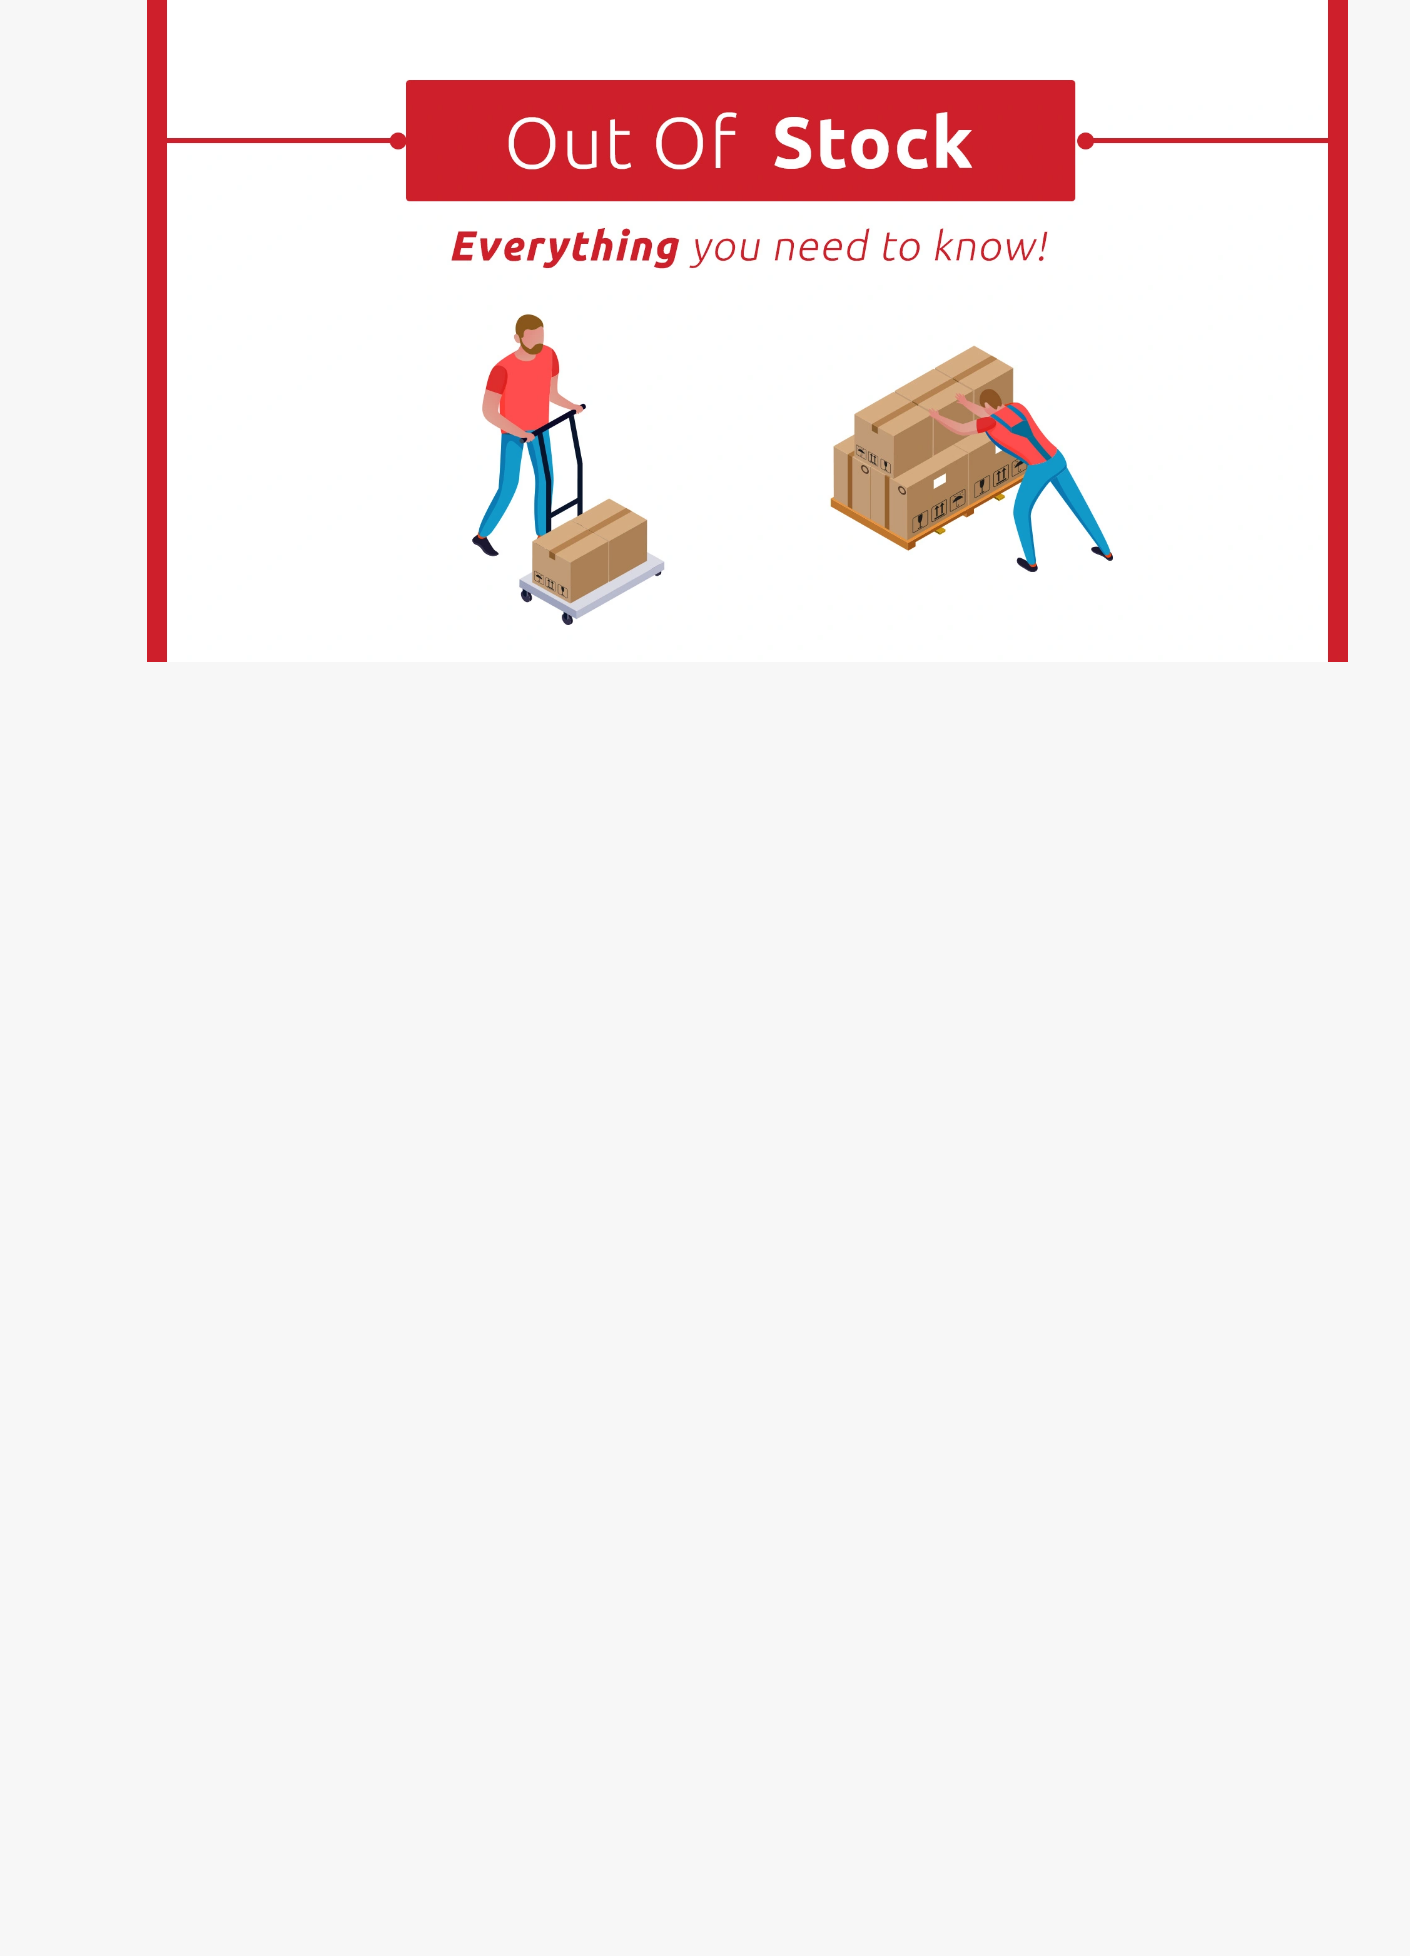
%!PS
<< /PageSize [1410 1956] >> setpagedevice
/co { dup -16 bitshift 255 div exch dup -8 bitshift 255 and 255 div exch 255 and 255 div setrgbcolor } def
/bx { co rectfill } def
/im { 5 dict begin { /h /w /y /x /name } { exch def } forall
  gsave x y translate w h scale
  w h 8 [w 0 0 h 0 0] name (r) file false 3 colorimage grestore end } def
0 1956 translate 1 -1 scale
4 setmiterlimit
0 0 1410 1956 16#F7F7F7 bx
(media/1.raw) 147 0 1201 662 im
showpage
